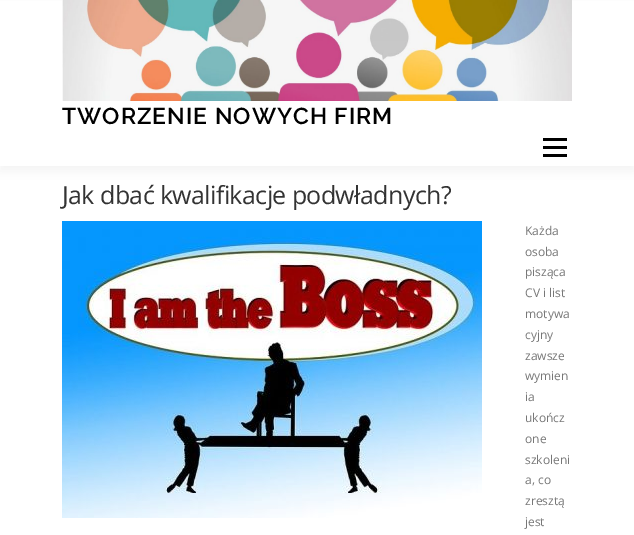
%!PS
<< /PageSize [634 535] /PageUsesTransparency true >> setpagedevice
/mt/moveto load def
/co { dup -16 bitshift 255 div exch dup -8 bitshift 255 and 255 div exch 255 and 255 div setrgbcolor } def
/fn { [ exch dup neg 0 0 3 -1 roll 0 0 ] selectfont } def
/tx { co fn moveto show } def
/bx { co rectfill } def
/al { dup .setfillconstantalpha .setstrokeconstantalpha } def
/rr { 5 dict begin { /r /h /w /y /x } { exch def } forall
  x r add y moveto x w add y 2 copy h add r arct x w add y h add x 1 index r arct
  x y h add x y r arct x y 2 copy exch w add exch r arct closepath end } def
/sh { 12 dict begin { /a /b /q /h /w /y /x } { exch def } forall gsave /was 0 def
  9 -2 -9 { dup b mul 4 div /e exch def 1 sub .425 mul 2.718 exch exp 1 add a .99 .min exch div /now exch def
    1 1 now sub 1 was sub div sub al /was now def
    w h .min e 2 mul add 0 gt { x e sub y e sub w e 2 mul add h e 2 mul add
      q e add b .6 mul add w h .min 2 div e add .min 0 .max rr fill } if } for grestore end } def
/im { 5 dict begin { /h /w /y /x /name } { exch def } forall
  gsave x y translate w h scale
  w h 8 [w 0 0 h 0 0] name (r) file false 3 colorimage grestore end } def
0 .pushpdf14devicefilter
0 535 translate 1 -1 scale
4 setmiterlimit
0 0 634 535 16#FFFFFF bx
16#323232 co
0 5 634 166 0 5 .06 sh
0 1 634 165 16#FFFFFF bx
(media/1.raw) 62 0 510 101 im
543 146 24 3 16#000000 bx
543 138 24 3 16#000000 bx
543 154 24 3 16#000000 bx
(media/2.raw) 62 221 420 297 im
/Raleway-SemiBold 23 fn
62 124 mt 1 0 (TWORZENIE NOWYCH FIRM) ashow
/OpenSans-Regular 25 fn
16#333333 co
62 204 mt -.6 0 (Jak dbać kwalifikacje podwładnych?) ashow
(Każda) 525 235 /OpenSans-Regular 12 16#777777 tx
(osoba) 525 256 /OpenSans-Regular 12 16#777777 tx
(pisząca) 525 276 /OpenSans-Regular 12 16#777777 tx
(CV i list) 525 297 /OpenSans-Regular 12 16#777777 tx
(motywa) 525 318 /OpenSans-Regular 12 16#777777 tx
(cyjny) 525 339 /OpenSans-Regular 12 16#777777 tx
(zawsze) 525 360 /OpenSans-Regular 12 16#777777 tx
(wymien) 525 380 /OpenSans-Regular 12 16#777777 tx
(ia) 525 401 /OpenSans-Regular 12 16#777777 tx
(ukończ) 525 422 /OpenSans-Regular 12 16#777777 tx
(one) 525 443 /OpenSans-Regular 12 16#777777 tx
(szkoleni) 525 464 /OpenSans-Regular 12 16#777777 tx
(a, co) 525 484 /OpenSans-Regular 12 16#777777 tx
(zresztą) 525 505 /OpenSans-Regular 12 16#777777 tx
(jest) 525 526 /OpenSans-Regular 12 16#777777 tx
.poppdf14devicefilter showpage
